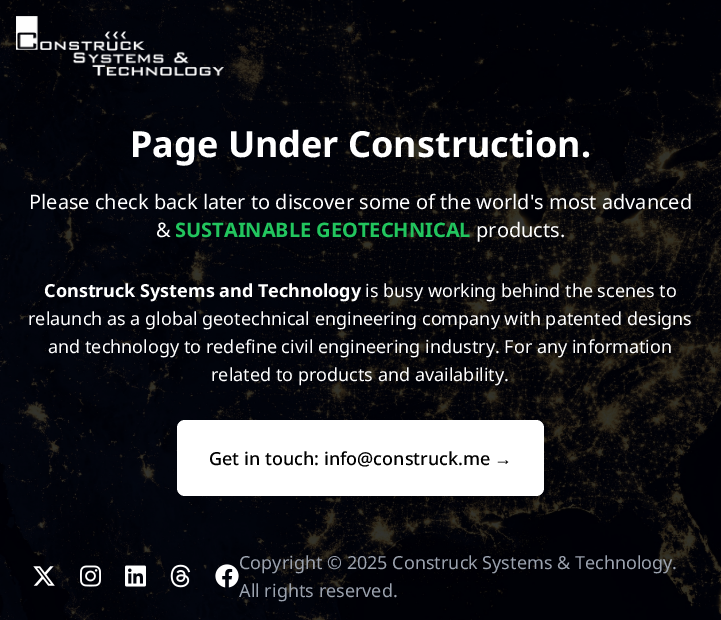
%!PS
<< /PageSize [721 620] >> setpagedevice
/fl/fill load def
/co { dup -16 bitshift 255 div exch dup -8 bitshift 255 and 255 div exch 255 and 255 div setrgbcolor } def
/fn { [ exch dup neg 0 0 3 -1 roll 0 0 ] selectfont } def
/tx { co fn moveto show } def
/bx { co rectfill } def
/rr { 5 dict begin { /r /h /w /y /x } { exch def } forall
  x r add y moveto x w add y 2 copy h add r arct x w add y h add x 1 index r arct
  x y h add x y r arct x y 2 copy exch w add exch r arct closepath end } def
/im { 5 dict begin { /h /w /y /x /name } { exch def } forall
  gsave x y translate w h scale
  w h 8 [w 0 0 h 0 0] name (r) file false 3 colorimage grestore end } def
0 620 translate 1 -1 scale
4 setmiterlimit
0 0 721 620 16#FFFFFF bx
(media/1.raw) 0 0 721 620 im
(media/2.raw) 16 16 208 60 im
177 420 367 76 8 rr fl
(media/3.raw) 33 566 22 20 im
(media/4.raw) 80 565 21 22 im
(media/5.raw) 125 565 21 22 im
(media/6.raw) 170 564 21 24 im
(media/7.raw) 215 564 24 24 im
(Page Under Construction.) 130 157 /NotoSans-Bold 36 16#FFFFFF tx
(Please check back later to discover some of the world's most advanced) 29 209 /NotoSans-Regular 20 16#FFFFFF tx
(&) 156 237 /NotoSans-Regular 20 16#FFFFFF tx
(SUSTAINABLE GEOTECHNICAL) 175 237 /NotoSans-Bold 20 16#22C55E tx
(products.) 476 237 /NotoSans-Regular 20 16#FFFFFF tx
(Construck Systems and Technology) 44 297 /NotoSans-Bold 18 16#FFFFFF tx
(is busy working behind the scenes to) 365 297 /NotoSans-Regular 18 16#FFFFFF tx
(relaunch as a global geotechnical engineering company with patented designs) 28 325 /NotoSans-Regular 18 16#FFFFFF tx
(and technology to redefine civil engineering industry. For any information) 48 353 /NotoSans-Regular 18 16#FFFFFF tx
(related to products and availability.) 211 381 /NotoSans-Regular 18 16#FFFFFF tx
(Get in touch: info@construck.me) 209 465 /NotoSans-Medium 18 16#000000 tx
(→) 494 465 /LiberationSans-Regular 18 16#000000 tx
(Copyright © 2025 Construck Systems & Technology.) 239 569 /NotoSans-Regular 18 16#9CA3AF tx
(All rights reserved.) 239 597 /NotoSans-Regular 18 16#9CA3AF tx
showpage
